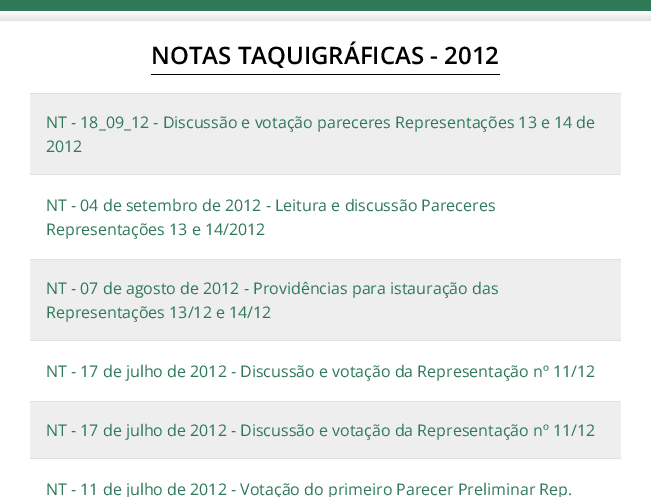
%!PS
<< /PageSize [651 497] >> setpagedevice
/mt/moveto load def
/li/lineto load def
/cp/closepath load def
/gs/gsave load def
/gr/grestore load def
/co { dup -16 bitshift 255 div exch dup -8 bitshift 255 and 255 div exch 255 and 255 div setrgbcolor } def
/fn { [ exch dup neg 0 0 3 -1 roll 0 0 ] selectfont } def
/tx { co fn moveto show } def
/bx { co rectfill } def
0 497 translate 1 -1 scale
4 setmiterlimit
0 0 651 497 16#FFFFFF bx
0 0 651 11 16#2F7958 bx
gs 0 12 mt 651 12 li 651 21 li 0 21 li cp clip newpath
<< /ShadingType 2 /ColorSpace /DeviceRGB /Coords [326 11 326 21] /Extend [true true] /Function << /FunctionType 2 /Domain [0 1] /C0 [1 1 1] /C1 [.894 .89 .886] /N 1 >> >> shfill gr
151 74 349 1 16#000000 bx
30 94 591 80 16#EEEEEE bx
30 93 591 1 16#E0E0E0 bx
30 174 591 1 16#E0E0E0 bx
30 260 591 80 16#EEEEEE bx
30 259 591 1 16#E0E0E0 bx
30 340 591 1 16#E0E0E0 bx
30 402 591 56 16#EEEEEE bx
30 401 591 1 16#E0E0E0 bx
30 458 591 1 16#E0E0E0 bx
(NOTAS TAQUIGRÁFICAS - 2012) 151 64 /OpenSans-SemiBold 24 16#000000 tx
(NT - 18_09_12 - Discussão e votação pareceres Representações 13 e 14 de) 46 128 /OpenSans-Regular 16 16#2F7958 tx
(2012) 46 152 /OpenSans-Regular 16 16#2F7958 tx
(NT - 04 de setembro de 2012 - Leitura e discussão Pareceres) 46 211 /OpenSans-Regular 16 16#2F7958 tx
(Representações 13 e 14/2012) 46 235 /OpenSans-Regular 16 16#2F7958 tx
(NT - 07 de agosto de 2012 - Providências para istauração das) 46 294 /OpenSans-Regular 16 16#2F7958 tx
(Representações 13/12 e 14/12) 46 318 /OpenSans-Regular 16 16#2F7958 tx
(NT - 17 de julho de 2012 - Discussão e votação da Representação nº 11/12) 46 377 /OpenSans-Regular 16 16#2F7958 tx
(NT - 17 de julho de 2012 - Discussão e votação da Representação nº 11/12) 46 436 /OpenSans-Regular 16 16#2F7958 tx
(NT - 11 de julho de 2012 - Votação do primeiro Parecer Preliminar Rep.) 46 495 /OpenSans-Regular 16 16#2F7958 tx
showpage
